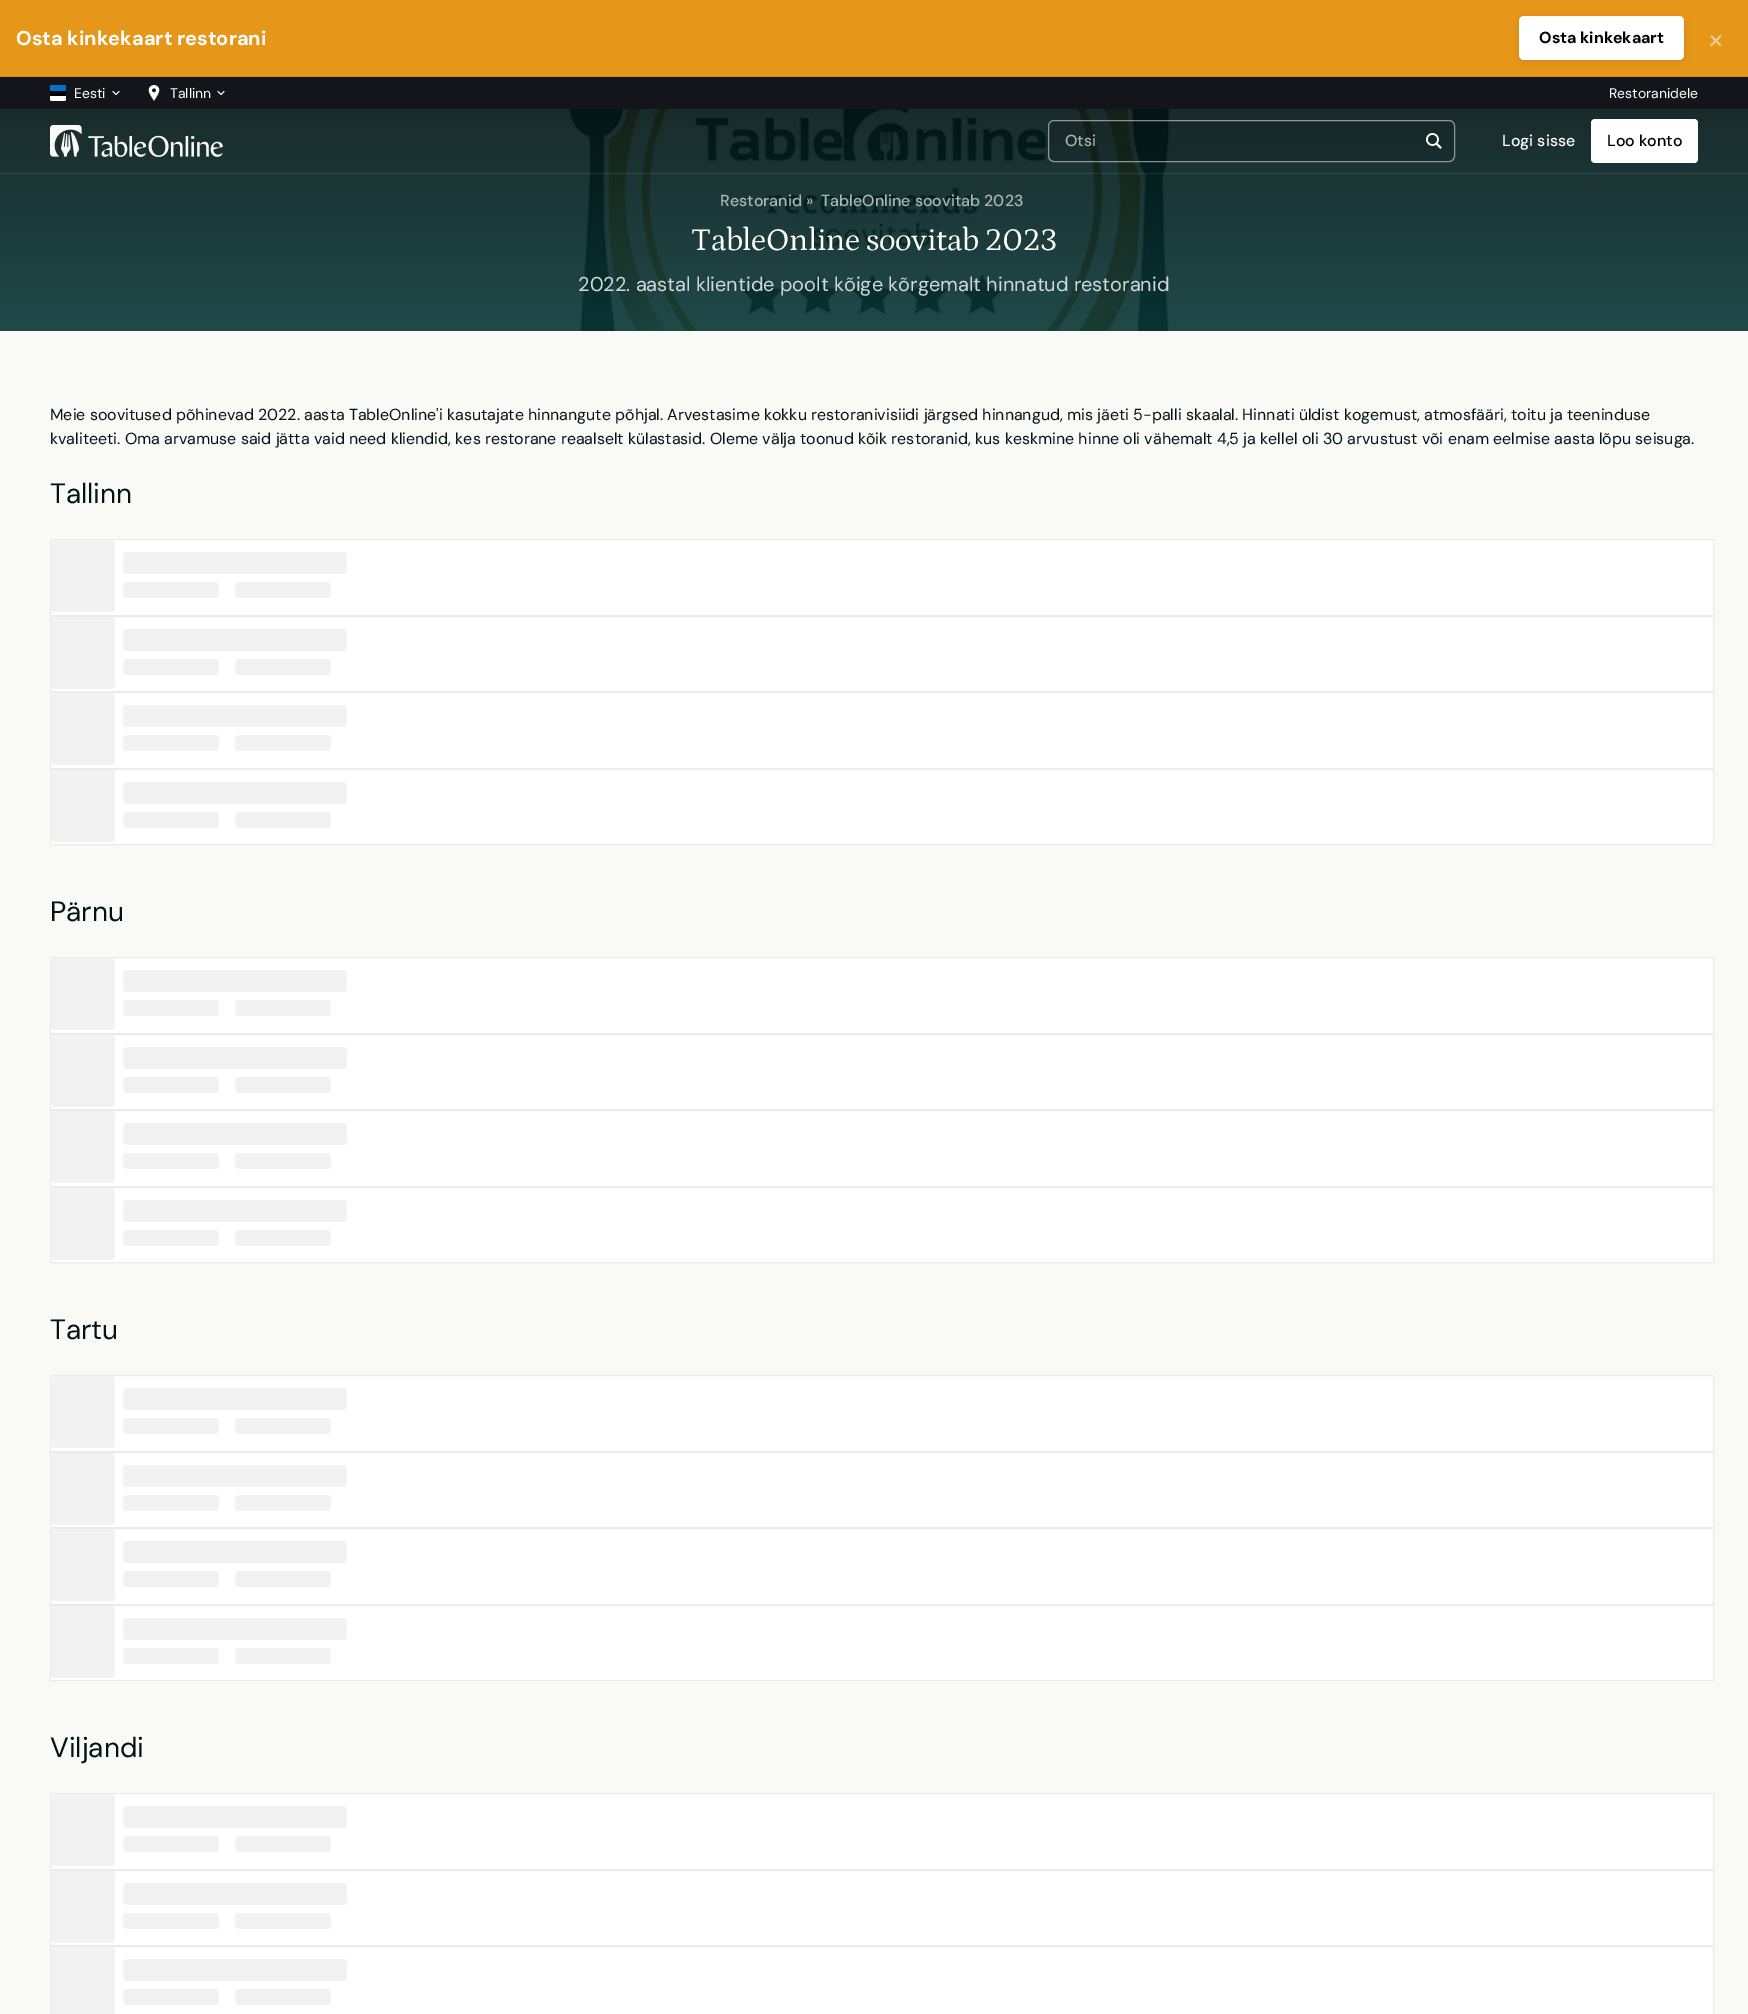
%!PS
<< /PageSize [1748 2014] /PageUsesTransparency true >> setpagedevice
/mt/moveto load def
/li/lineto load def
/ct/curveto load def
/cp/closepath load def
/fl/fill load def
/st/stroke load def
/gs/gsave load def
/gr/grestore load def
/co { dup -16 bitshift 255 div exch dup -8 bitshift 255 and 255 div exch 255 and 255 div setrgbcolor } def
/fn { [ exch dup neg 0 0 3 -1 roll 0 0 ] selectfont } def
/tx { co fn moveto show } def
/bx { co rectfill } def
/al { dup .setfillconstantalpha .setstrokeconstantalpha } def
/rr { 5 dict begin { /r /h /w /y /x } { exch def } forall
  x r add y moveto x w add y 2 copy h add r arct x w add y h add x 1 index r arct
  x y h add x y r arct x y 2 copy exch w add exch r arct closepath end } def
/sh { 12 dict begin { /a /b /q /h /w /y /x } { exch def } forall gsave /was 0 def
  9 -2 -9 { dup b mul 4 div /e exch def 1 sub .425 mul 2.718 exch exp 1 add a .99 .min exch div /now exch def
    1 1 now sub 1 was sub div sub al /was now def
    w h .min e 2 mul add 0 gt { x e sub y e sub w e 2 mul add h e 2 mul add
      q e add b .6 mul add w h .min 2 div e add .min 0 .max rr fill } if } for grestore end } def
/im { 5 dict begin { /h /w /y /x /name } { exch def } forall
  gsave x y translate w h scale
  w h 8 [w 0 0 h 0 0] name (r) file false 3 colorimage grestore end } def
0 .pushpdf14devicefilter
0 2014 translate 1 -1 scale
4 setmiterlimit
0 0 1748 2014 16#F9F9F6 bx
(media/4.raw) 0 109 1748 222 im
16#000000 co
0 18 1748 77 0 17.5 .17 sh
0 0 1748 76 16#E69719 bx
0 76 1748 1 16#CF8817 bx
16#000000 co
1519 18 165 44 5 3 .1 sh
16#FFFFFF co
1519 16 165 44 5 rr fl
0 77 1748 32 16#14151A bx
16#FFFFFF co
50 85 16 16 2 rr fl
16#000000 co
52 85 mt 64 85 li 65 85 66 86 66 87 ct 66 96 li 50 96 li 50 87 li 50 86 51 85 52 85 ct cp fl
16#0072CE co
52 85 mt 64 85 li 65 85 66 86 66 87 ct 66 91 li 50 91 li 50 87 li 50 86 51 85 52 85 ct cp fl
16#FFFFFF co
1 setlinecap
1 setlinejoin
113 91.5 mt 116 94.5 li 119 91.5 li st
(media/1.raw) 148 85 12 16 im
218 91.5 mt 221 94.5 li 224 91.5 li st
0.1 al
0 173 1748 1 16#FFFFFF bx
1 al
(media/2.raw) 50 125 173 32 im
0.1 al
16#000000 co
1049 121 405 40 5 rr fl
0.5 al
16#FFFFFF co
0 setlinecap
0 setlinejoin
1048.5 120.5 406 41 5.5 rr st
1 al
(media/3.raw) 1426 133 16 16 im
1591 119 107 44 4 rr fl
50.5 539.5 mt 1713.5 539.5 li 1713.5 615.5 li 50.5 615.5 li cp gs fl gr
16#EBEBEB co
st
16#F2F2F2 co
51 540 64 72 4 rr fl
123 552 224 22 4 rr fl
123 582 96 16 4 rr fl
235 582 96 16 4 rr fl
16#FFFFFF co
50.5 616.5 mt 1713.5 616.5 li 1713.5 691.5 li 50.5 691.5 li cp gs fl gr
16#EBEBEB co
st
16#F2F2F2 co
51 617 64 72 4 rr fl
123 629 224 22 4 rr fl
123 659 96 16 4 rr fl
235 659 96 16 4 rr fl
16#FFFFFF co
50.5 692.5 mt 1713.5 692.5 li 1713.5 768.5 li 50.5 768.5 li cp gs fl gr
16#EBEBEB co
st
16#F2F2F2 co
51 693 64 72 4 rr fl
123 705 224 22 4 rr fl
123 735 96 16 4 rr fl
235 735 96 16 4 rr fl
16#FFFFFF co
50.5 769.5 mt 1713.5 769.5 li 1713.5 844.5 li 50.5 844.5 li cp gs fl gr
16#EBEBEB co
st
16#F2F2F2 co
51 770 64 72 4 rr fl
123 782 224 22 4 rr fl
123 812 96 16 4 rr fl
235 812 96 16 4 rr fl
16#FFFFFF co
50.5 957.5 mt 1713.5 957.5 li 1713.5 1033.5 li 50.5 1033.5 li cp gs fl gr
16#EBEBEB co
st
16#F2F2F2 co
51 958 64 72 4 rr fl
123 970 224 22 4 rr fl
123 1000 96 16 4 rr fl
235 1000 96 16 4 rr fl
16#FFFFFF co
50.5 1034.5 mt 1713.5 1034.5 li 1713.5 1109.5 li 50.5 1109.5 li cp gs fl gr
16#EBEBEB co
st
16#F2F2F2 co
51 1035 64 72 4 rr fl
123 1047 224 22 4 rr fl
123 1077 96 16 4 rr fl
235 1077 96 16 4 rr fl
16#FFFFFF co
50.5 1110.5 mt 1713.5 1110.5 li 1713.5 1186.5 li 50.5 1186.5 li cp gs fl gr
16#EBEBEB co
st
16#F2F2F2 co
51 1111 64 72 4 rr fl
123 1123 224 22 4 rr fl
123 1153 96 16 4 rr fl
235 1153 96 16 4 rr fl
16#FFFFFF co
50.5 1187.5 mt 1713.5 1187.5 li 1713.5 1262.5 li 50.5 1262.5 li cp gs fl gr
16#EBEBEB co
st
16#F2F2F2 co
51 1188 64 72 4 rr fl
123 1200 224 22 4 rr fl
123 1230 96 16 4 rr fl
235 1230 96 16 4 rr fl
16#FFFFFF co
50.5 1375.5 mt 1713.5 1375.5 li 1713.5 1451.5 li 50.5 1451.5 li cp gs fl gr
16#EBEBEB co
st
16#F2F2F2 co
51 1376 64 72 4 rr fl
123 1388 224 22 4 rr fl
123 1418 96 16 4 rr fl
235 1418 96 16 4 rr fl
16#FFFFFF co
50.5 1452.5 mt 1713.5 1452.5 li 1713.5 1527.5 li 50.5 1527.5 li cp gs fl gr
16#EBEBEB co
st
16#F2F2F2 co
51 1453 64 72 4 rr fl
123 1465 224 22 4 rr fl
123 1495 96 16 4 rr fl
235 1495 96 16 4 rr fl
16#FFFFFF co
50.5 1528.5 mt 1713.5 1528.5 li 1713.5 1604.5 li 50.5 1604.5 li cp gs fl gr
16#EBEBEB co
st
16#F2F2F2 co
51 1529 64 72 4 rr fl
123 1541 224 22 4 rr fl
123 1571 96 16 4 rr fl
235 1571 96 16 4 rr fl
16#FFFFFF co
50.5 1605.5 mt 1713.5 1605.5 li 1713.5 1680.5 li 50.5 1680.5 li cp gs fl gr
16#EBEBEB co
st
16#F2F2F2 co
51 1606 64 72 4 rr fl
123 1618 224 22 4 rr fl
123 1648 96 16 4 rr fl
235 1648 96 16 4 rr fl
16#FFFFFF co
50.5 1793.5 mt 1713.5 1793.5 li 1713.5 1869.5 li 50.5 1869.5 li cp gs fl gr
16#EBEBEB co
st
16#F2F2F2 co
51 1794 64 72 4 rr fl
123 1806 224 22 4 rr fl
123 1836 96 16 4 rr fl
235 1836 96 16 4 rr fl
16#FFFFFF co
50.5 1870.5 mt 1713.5 1870.5 li 1713.5 1945.5 li 50.5 1945.5 li cp gs fl gr
16#EBEBEB co
st
16#F2F2F2 co
51 1871 64 72 4 rr fl
123 1883 224 22 4 rr fl
123 1913 96 16 4 rr fl
235 1913 96 16 4 rr fl
16#FFFFFF co
50.5 1946.5 mt 1713.5 1946.5 li 1713.5 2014.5 li 50.5 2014.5 li cp gs fl gr
16#EBEBEB co
st
16#F2F2F2 co
51 1947 64 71 4 rr fl
123 1959 224 22 4 rr fl
123 1989 96 16 4 rr fl
235 1989 96 16 4 rr fl
(Osta kinkekaart restorani) 16 45 /DMSans-Bold 20 16#FFFFFF tx
(Osta kinkekaart) 1539 43 /DMSans-Bold 16 16#000000 tx
(×) 1707 50 /DMSans-Regular 32 16#F3CB8C tx
(Eesti) 74 98 /DMSans-Regular 14 16#FFFFFF tx
(Tallinn) 170 98 /DMSans-Regular 14 16#FFFFFF tx
(Restoranidele) 1609 98 /DMSans-Regular 14 16#FFFFFF tx
(Otsi) 1065 146 /DMSans-Medium 16 16#ABB1B1 tx
(Logi sisse) 1502 146 /DMSans-Medium 16 16#FFFFFF tx
(Loo konto) 1607 146 /DMSans-Medium 16 16#000000 tx
(Restoranid) 720 206 /DMSans-Medium 16 16#AEB7B7 tx
(») 806 206 /DMSans-Regular 16 16#AEB7B7 tx
(TableOnline soovitab 2023) 821 206 /DMSans-Medium 16 16#AEB7B7 tx
/Petrona-Regular 32 fn
16#FFFFFF co
691 250 mt -.4 0 (TableOnline soovitab 2023) ashow
(2022. aastal klientide poolt kõige kõrgemalt hinnatud restoranid) 578 291 /DMSans-Regular 20 16#D1D8D8 tx
(Meie soovitused põhinevad 2022. aasta TableOnline'i kasutajate hinnangute põhjal. Arvestasime kokku restoranivisiidi järgsed hinnangud, mis jäeti 5-palli skaalal. Hinnati üldist kogemust, atmosfääri, toitu ja teeninduse) 50 420 /DMSans-Regular 16 16#001414 tx
(kvaliteeti. Oma arvamuse said jätta vaid need kliendid, kes restorane reaalselt külastasid. Oleme välja toonud kõik restoranid, kus keskmine hinne oli vähemalt 4,5 ja kellel oli 30 arvustust või enam eelmise aasta lõpu seisuga.) 50 444 /DMSans-Regular 16 16#001414 tx
(Tallinn) 50 503 /DMSans-Regular 28 16#001414 tx
(Pärnu) 50 921 /DMSans-Regular 28 16#001414 tx
(Tartu) 50 1339 /DMSans-Regular 28 16#001414 tx
(Viljandi) 50 1757 /DMSans-Regular 28 16#001414 tx
.poppdf14devicefilter showpage
